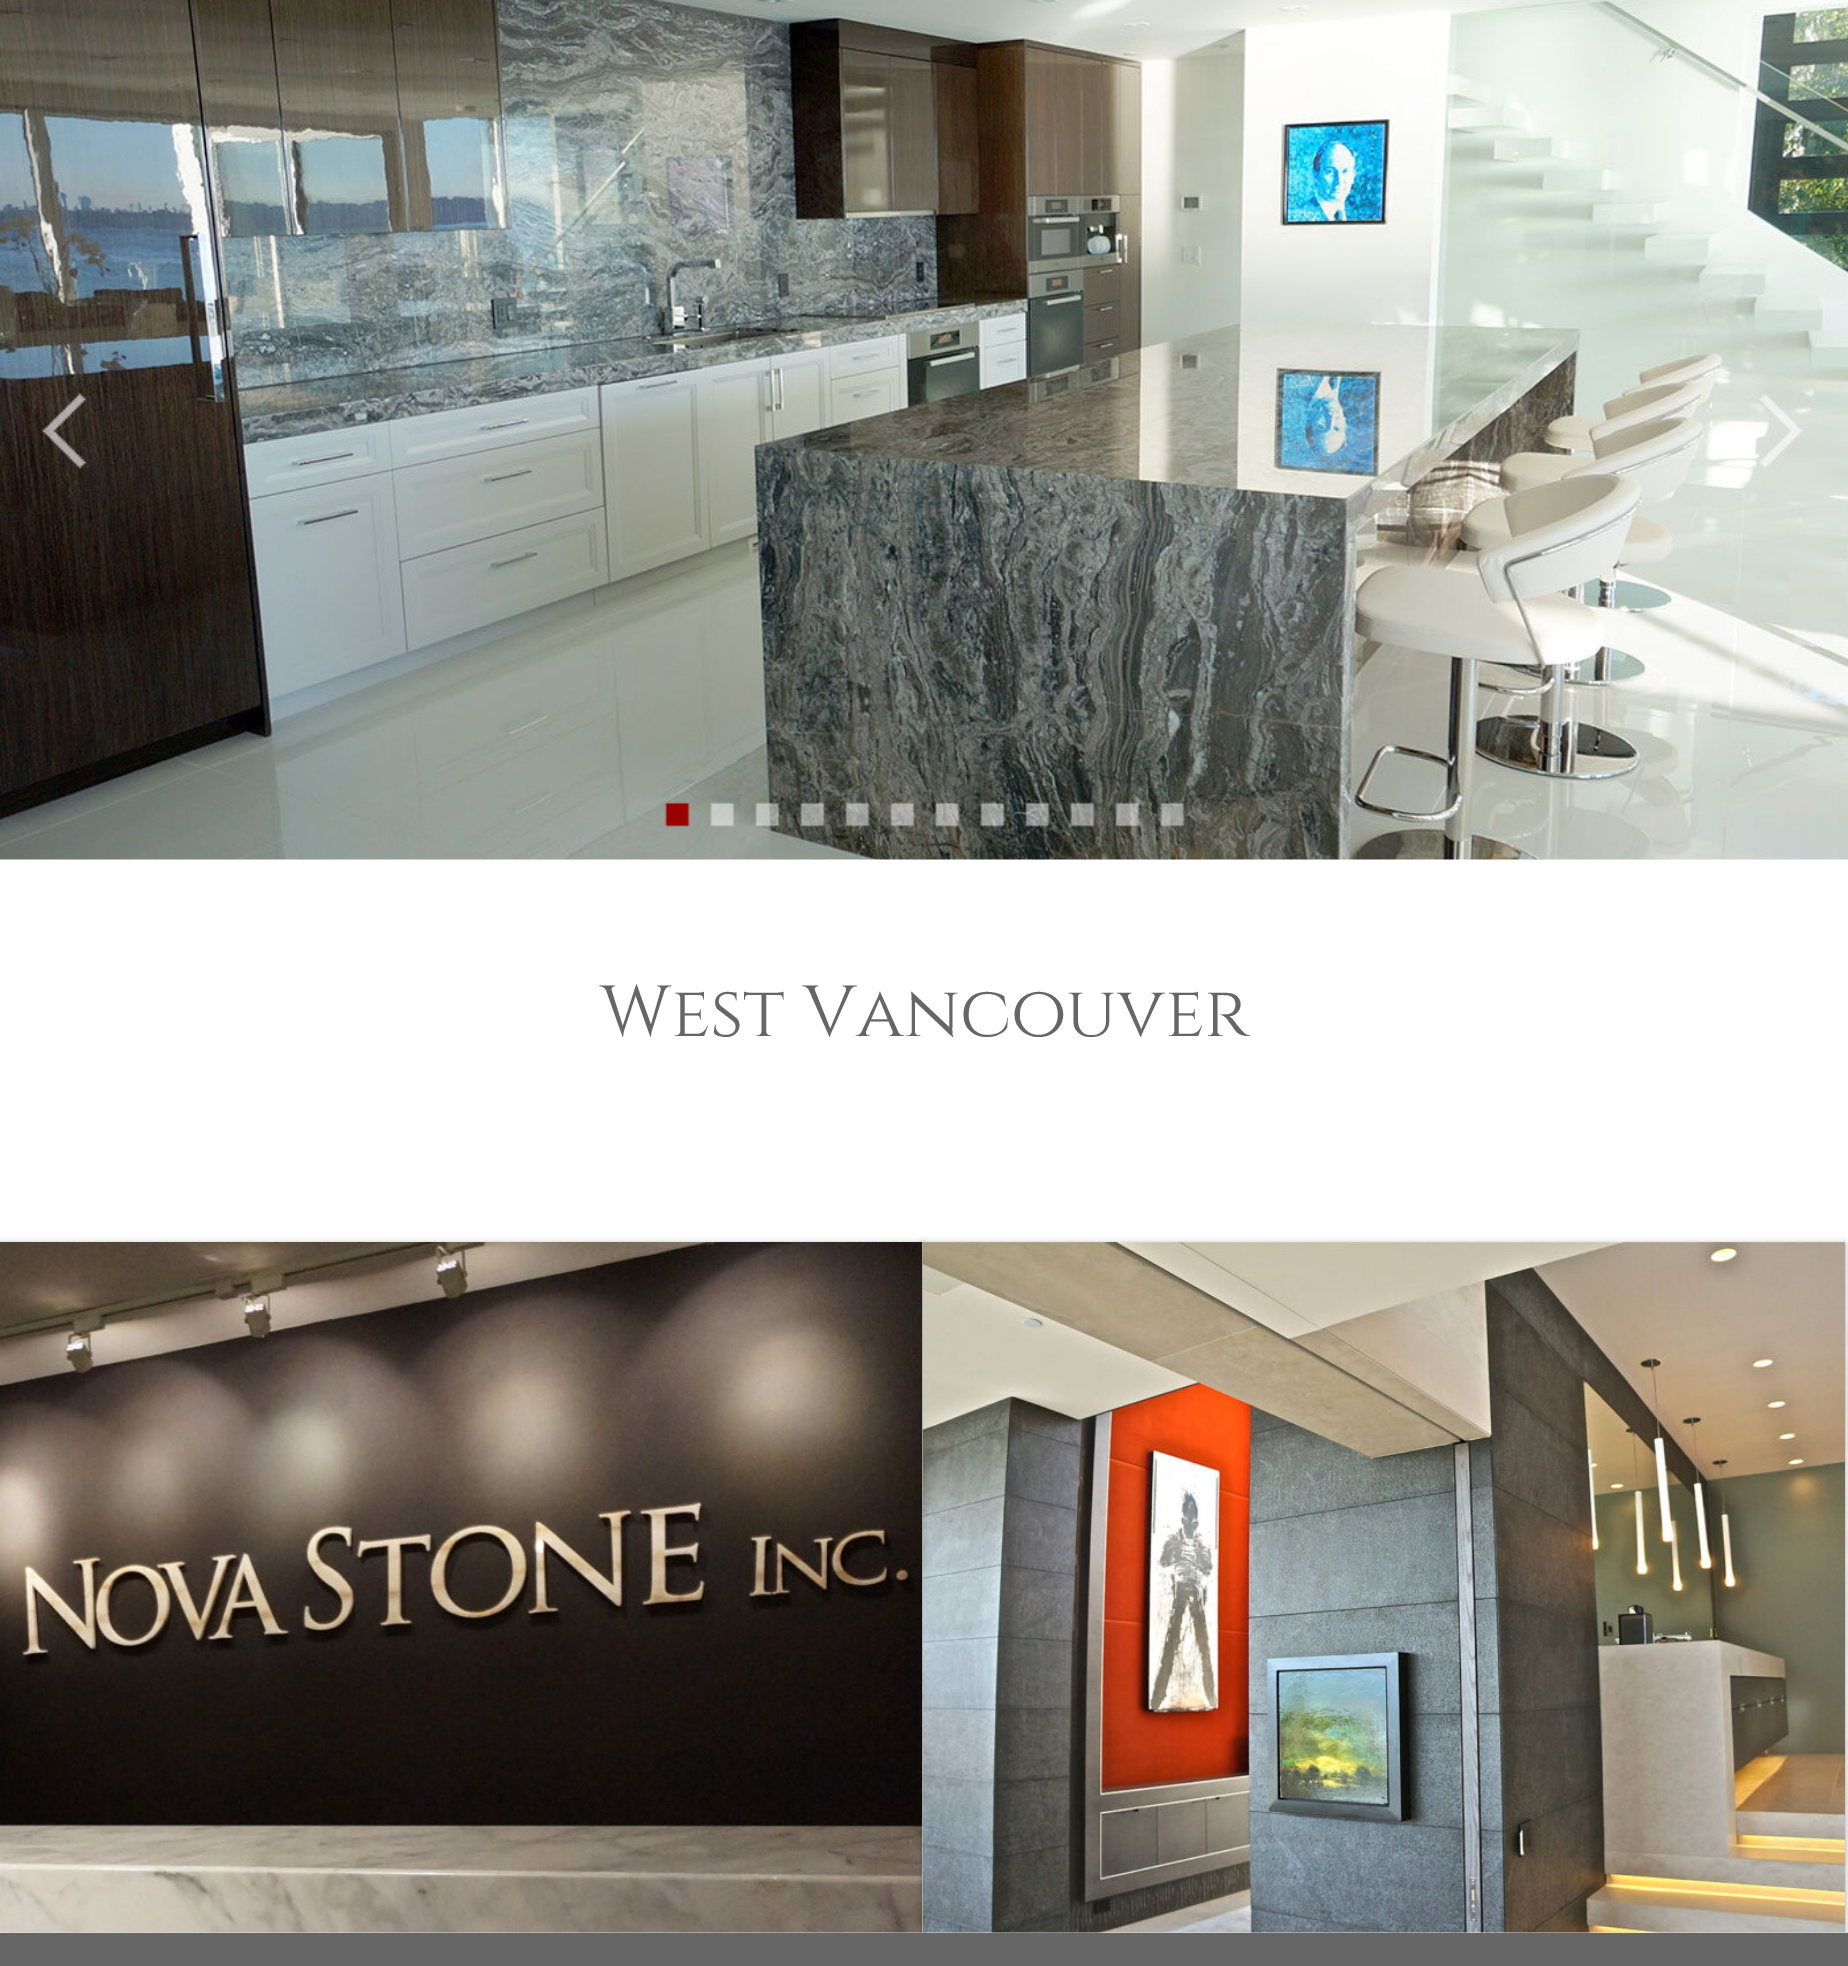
%!PS
<< /PageSize [1848 1966] /PageUsesTransparency true >> setpagedevice
/co { dup -16 bitshift 255 div exch dup -8 bitshift 255 and 255 div exch 255 and 255 div setrgbcolor } def
/fn { [ exch dup neg 0 0 3 -1 roll 0 0 ] selectfont } def
/tx { co fn moveto show } def
/bx { co rectfill } def
/al { dup .setfillconstantalpha .setstrokeconstantalpha } def
/rr { 5 dict begin { /r /h /w /y /x } { exch def } forall
  x r add y moveto x w add y 2 copy h add r arct x w add y h add x 1 index r arct
  x y h add x y r arct x y 2 copy exch w add exch r arct closepath end } def
/sh { 12 dict begin { /a /b /q /h /w /y /x } { exch def } forall gsave /was 0 def
  9 -2 -9 { dup b mul 4 div /e exch def 1 sub .425 mul 2.718 exch exp 1 add a .99 .min exch div /now exch def
    1 1 now sub 1 was sub div sub al /was now def
    w h .min e 2 mul add 0 gt { x e sub y e sub w e 2 mul add h e 2 mul add
      q e add b .6 mul add w h .min 2 div e add .min 0 .max rr fill } if } for grestore end } def
/im { 5 dict begin { /h /w /y /x /name } { exch def } forall
  gsave x y translate w h scale
  w h 8 [w 0 0 h 0 0] name (r) file false 3 colorimage grestore end } def
0 .pushpdf14devicefilter
0 1966 translate 1 -1 scale
4 setmiterlimit
0 0 1848 1966 16#FFFFFF bx
(media/1.raw) 0 859 1848 1074 im
(media/2.raw) 0 0 1848 860 im
(media/3.raw) 42 393 45 76 im
(media/4.raw) 1759 393 44 76 im
(media/5.raw) 664 802 26 25 im
(media/6.raw) 710 802 25 25 im
(media/7.raw) 755 802 25 25 im
(media/8.raw) 800 802 25 25 im
(media/9.raw) 845 802 25 25 im
(media/10.raw) 890 802 25 25 im
(media/11.raw) 935 802 25 25 im
(media/12.raw) 980 802 25 25 im
(media/13.raw) 1025 802 25 25 im
(media/14.raw) 1070 802 25 25 im
(media/15.raw) 1115 802 25 25 im
(media/16.raw) 1160 802 25 25 im
0 860 1848 382 16#FFFFFF bx
16#221919 co
0 1244 923 691 0 3.5 .4 sh
(media/17.raw) 0 1242 923 691 im
923 1244 922 691 0 3.5 .4 sh
(media/18.raw) 922 1242 923 691 im
0 1933 1848 33 16#666666 bx
(West Vancouver) 600 1036 /cinzel-Regular 72 16#666666 tx
.poppdf14devicefilter showpage
